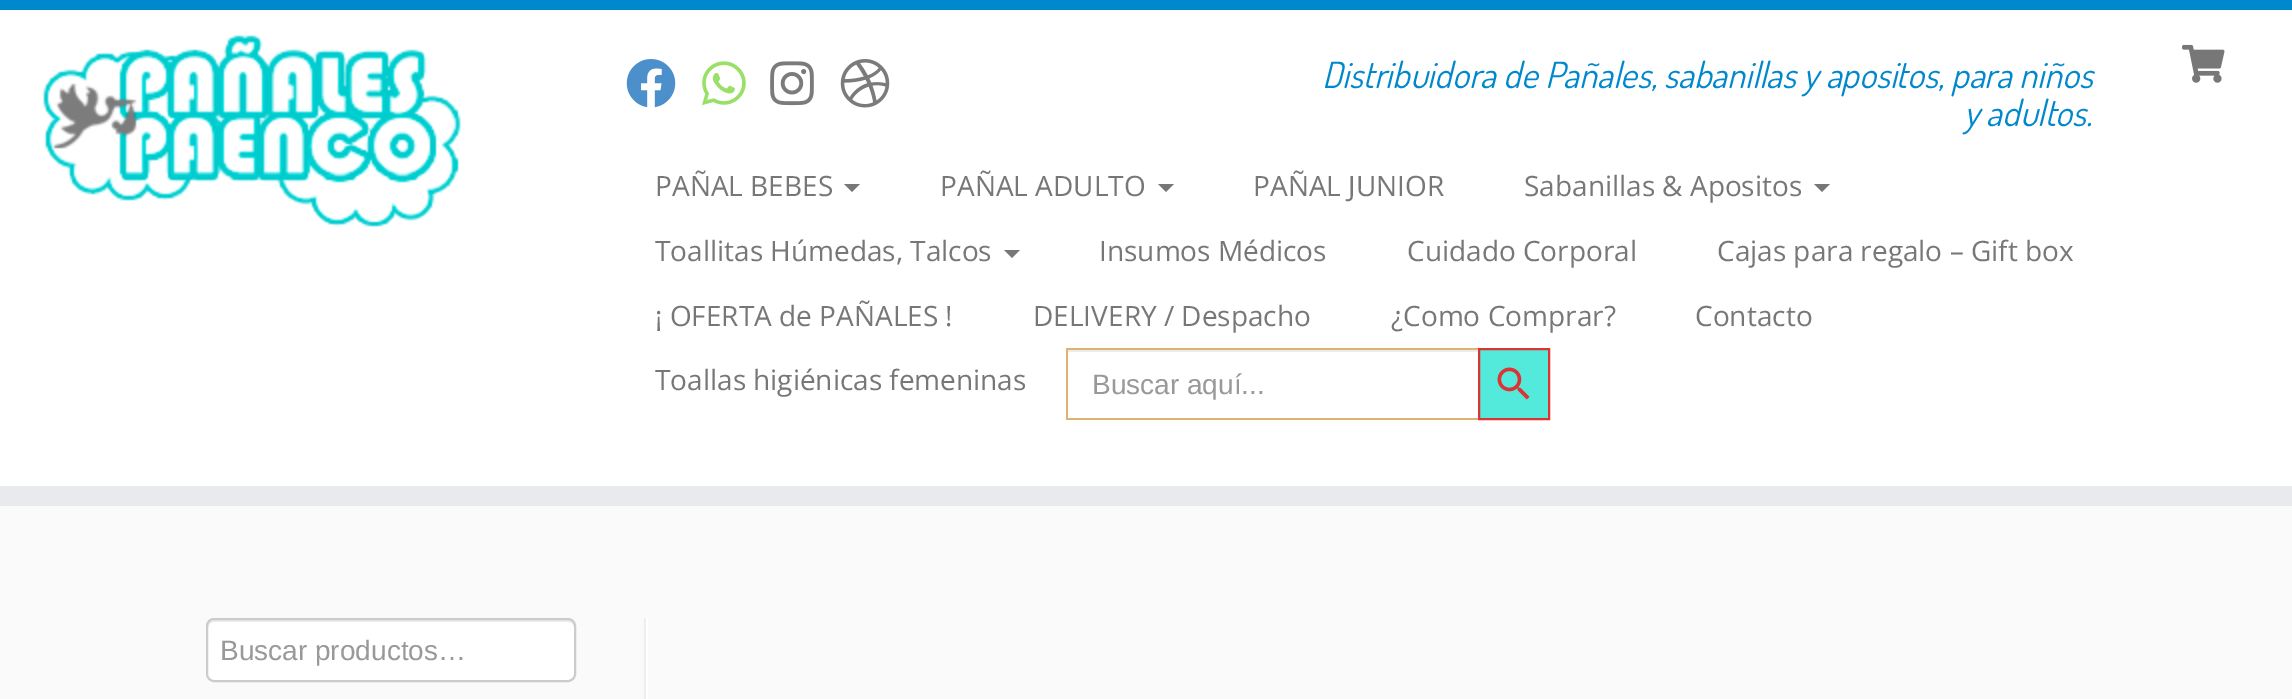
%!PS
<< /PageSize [2292 699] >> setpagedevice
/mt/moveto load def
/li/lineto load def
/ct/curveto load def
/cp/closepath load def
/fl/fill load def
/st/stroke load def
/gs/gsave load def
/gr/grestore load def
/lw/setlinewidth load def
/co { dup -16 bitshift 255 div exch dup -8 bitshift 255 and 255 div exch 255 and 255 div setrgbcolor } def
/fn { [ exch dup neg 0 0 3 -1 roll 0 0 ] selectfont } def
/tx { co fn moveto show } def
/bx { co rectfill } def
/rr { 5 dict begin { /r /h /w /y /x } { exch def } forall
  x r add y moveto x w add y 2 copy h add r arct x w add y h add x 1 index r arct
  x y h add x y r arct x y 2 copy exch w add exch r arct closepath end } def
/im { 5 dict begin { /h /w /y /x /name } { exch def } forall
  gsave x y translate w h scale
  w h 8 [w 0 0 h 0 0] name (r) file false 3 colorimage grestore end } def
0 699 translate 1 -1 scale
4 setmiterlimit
0 0 2292 699 16#FAFAFA bx
0 10 2292 476 16#FFFFFF bx
0 0 2292 10 16#0088CC bx
0 486 2292 20 16#E9EAEE bx
(media/1.raw) 43 35 418 192 im
(media/2.raw) 626 59 50 49 im
(media/3.raw) 702 61 44 45 im
(media/4.raw) 770 61 44 45 im
(media/5.raw) 840 59 50 49 im
(media/6.raw) 2182 44 43 39 im
16#777777 co
844 184 mt 860 184 li 852 192 li cp fl
1158 184 mt 1174 184 li 1166 192 li cp fl
1814 184 mt 1830 184 li 1822 192 li cp fl
1004 250 mt 1020 250 li 1012 258 li cp fl
1068 350 410 2 16#ECECEC bx
1066 348 412 2 16#DDB373 bx
1066 418 412 2 16#DDB373 bx
1066 348 2 72 16#DDB373 bx
16#54EADB co
1479 349 mt 1549 349 li 1549 419 li 1479 419 li cp gs fl gr
16#DD3333 co
2 lw
st
(media/7.raw) 1497 367 33 33 im
644 618 2 81 16#EEEEEE bx
16#FFFFFF co
206 618 370 64 8 rr fl
16#ECECEC co
214 622 mt 568 622 li 571 622 574 625 574 628 ct 574 626 li 574 623 571 620 568 620 ct 214 620 li 211 620 208 623 208 626 ct 208 628 li 208 625 211 622 214 622 ct cp fl
16#CCCCCC co
207 619 368 62 7 rr st
646 618 2 81 16#FFFFFF bx
(Distribuidora de Pañales, sabanillas y apositos, para niños) 1322 88 /Dosis-Italic 36 16#0088CC tx
(y adultos.) 1964 126 /Dosis-Italic 36 16#0088CC tx
(PAÑAL BEBES) 655 196 /OpenSans-Regular 28 16#777777 tx
(PAÑAL ADULTO) 940 196 /OpenSans-Regular 28 16#777777 tx
(PAÑAL JUNIOR) 1253 196 /OpenSans-Regular 28 16#777777 tx
(Sabanillas & Apositos) 1524 196 /OpenSans-Regular 28 16#777777 tx
(Toallitas Húmedas, Talcos) 655 261 /OpenSans-Regular 28 16#777777 tx
(Insumos Médicos) 1099 261 /OpenSans-Regular 28 16#777777 tx
(Cuidado Corporal) 1407 261 /OpenSans-Regular 28 16#777777 tx
(Cajas para regalo – Gift box) 1717 261 /OpenSans-Regular 28 16#777777 tx
(¡ OFERTA de PAÑALES !) 655 326 /OpenSans-Regular 28 16#777777 tx
(DELIVERY / Despacho) 1033 326 /OpenSans-Regular 28 16#777777 tx
(¿Como Comprar?) 1391 326 /OpenSans-Regular 28 16#777777 tx
(Contacto) 1695 326 /OpenSans-Regular 28 16#777777 tx
(Toallas higiénicas femeninas) 655 390 /OpenSans-Regular 28 16#777777 tx
(Buscar aquí...) 1092 394 /LiberationSans-Regular 28 16#999999 tx
(Buscar productos…) 220 660 /LiberationSans-Regular 28 16#999999 tx
showpage
